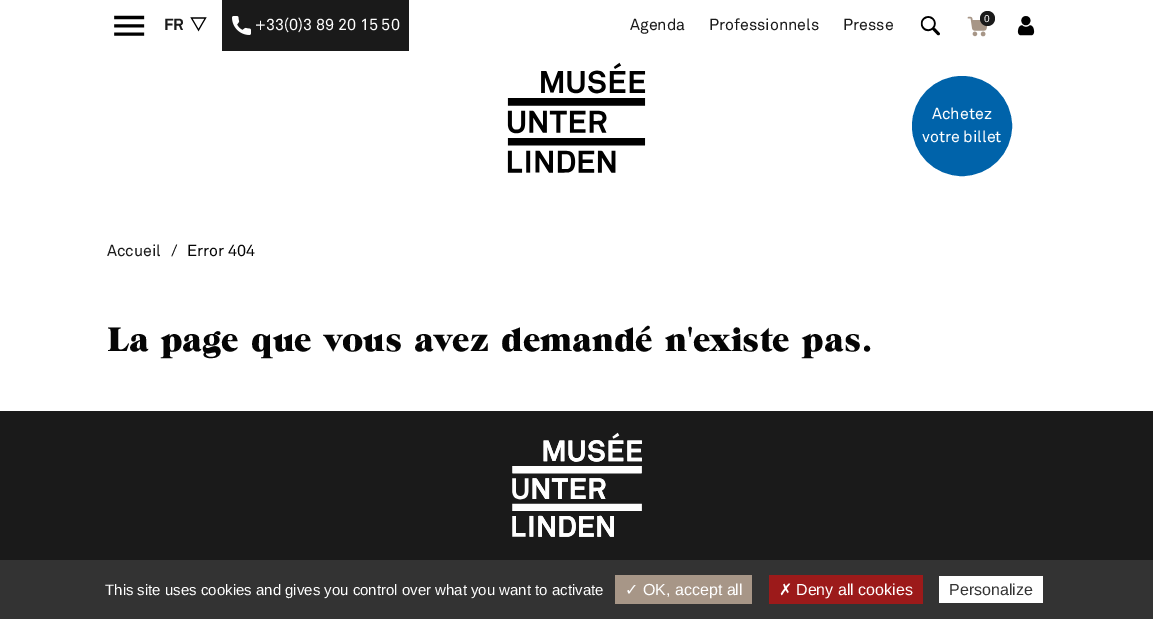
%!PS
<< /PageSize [1153 619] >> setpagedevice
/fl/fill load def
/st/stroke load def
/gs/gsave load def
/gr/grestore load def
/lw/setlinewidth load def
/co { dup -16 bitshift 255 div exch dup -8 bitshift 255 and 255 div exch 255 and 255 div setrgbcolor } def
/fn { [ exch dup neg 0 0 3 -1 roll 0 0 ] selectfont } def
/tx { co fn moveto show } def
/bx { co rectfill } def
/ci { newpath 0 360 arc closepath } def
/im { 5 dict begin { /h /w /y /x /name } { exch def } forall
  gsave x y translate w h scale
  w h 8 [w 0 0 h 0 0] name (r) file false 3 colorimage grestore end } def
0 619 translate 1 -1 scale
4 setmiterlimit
0 0 1153 619 16#FFFFFF bx
(media/1.raw) 114 15 31 21 im
(media/2.raw) 190 17 17 15 im
222 0 187 51 16#1A1A1A bx
(media/3.raw) 232 16 19 19 im
(media/4.raw) 920 16 20 20 im
(media/5.raw) 967 16 21 21 im
987.5 18.5 7.5 ci fl
(media/6.raw) 1017 16 18 20 im
(media/7.raw) 507 62 139 111 im
16#0063AA co
962 126 47.5 ci gs fl gr
5 lw
st
0 411 1153 149 16#1A1A1A bx
(media/8.raw) 512 432 130 105 im
0 560 1153 59 16#333333 bx
615 575 137 29 16#A79687 bx
769 575 154 29 16#9C1A1A bx
939 576 104 27 16#FFFFFF bx
(FR) 164 30 /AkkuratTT-Bold 16 16#1A1A1A tx
(+33\(0\)3 89 20 15 50) 255 30 /AkkuratTT-Regular 16 16#FFFFFF tx
(Agenda) 630 30 /AkkuratTT-Regular 16 16#1A1A1A tx
(Professionnels) 709 30 /AkkuratTT-Regular 16 16#1A1A1A tx
(Presse) 843 30 /AkkuratTT-Regular 16 16#1A1A1A tx
(0) 984 22 /AkkuratTT-Regular 10 16#FFFFFF tx
(Achetez) 932 119 /AkkuratTT-Regular 16 16#FFFFFF tx
(votre billet) 922 142 /AkkuratTT-Regular 16 16#FFFFFF tx
(Accueil) 107 256 /AkkuratTT-Regular 16 16#1A1A1A tx
(/) 171 256 /AkkuratTT-Regular 16 16#050505 tx
(Error 404) 187 256 /AkkuratTT-Regular 16 16#050505 tx
(La page que vous avez demandé n'existe pas.) 107 351 /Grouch-Regular 34 16#050505 tx
(This site uses cookies and gives you control over what you want to activate) 105 595 /LiberationSans-Regular 15 16#FFFFFF tx
(✓) 625 595 /DejaVuSans-Regular 16 16#FFFFFF tx
(OK, accept all) 643 595 /LiberationSans-Regular 16 16#FFFFFF tx
(✗) 779 595 /DejaVuSans-Regular 16 16#FFFFFF tx
(Deny all cookies) 796 595 /LiberationSans-Regular 16 16#FFFFFF tx
(Personalize) 949 595 /LiberationSans-Regular 16 16#333333 tx
showpage
